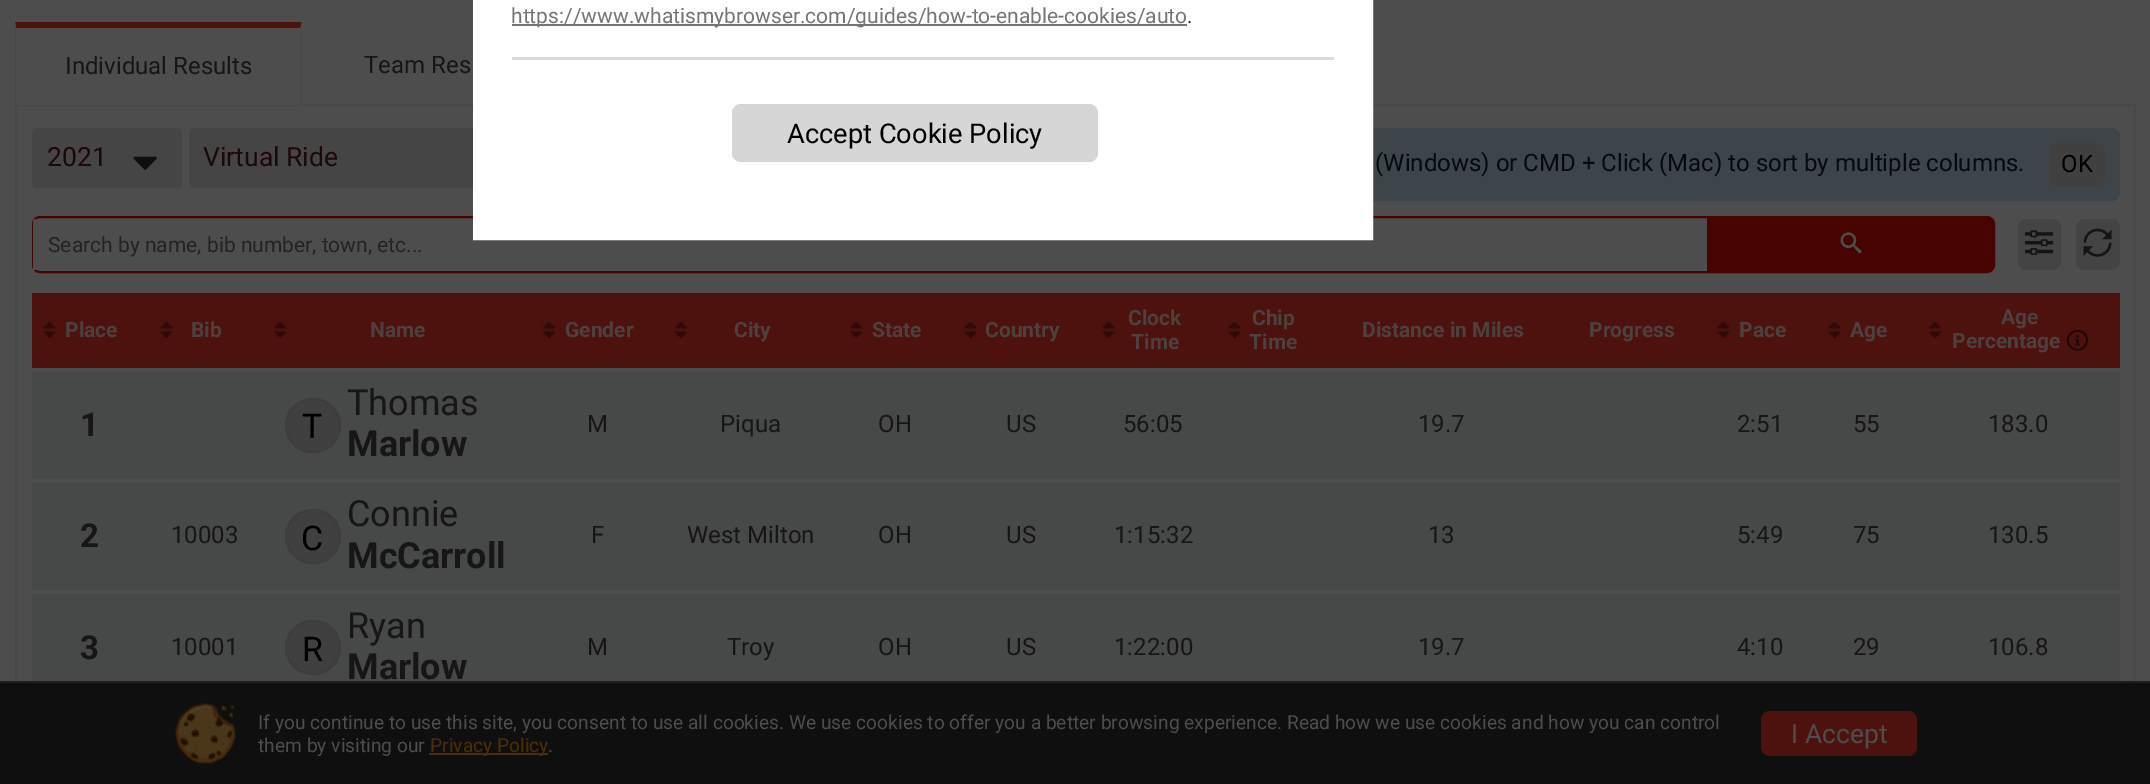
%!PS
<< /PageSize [2150 784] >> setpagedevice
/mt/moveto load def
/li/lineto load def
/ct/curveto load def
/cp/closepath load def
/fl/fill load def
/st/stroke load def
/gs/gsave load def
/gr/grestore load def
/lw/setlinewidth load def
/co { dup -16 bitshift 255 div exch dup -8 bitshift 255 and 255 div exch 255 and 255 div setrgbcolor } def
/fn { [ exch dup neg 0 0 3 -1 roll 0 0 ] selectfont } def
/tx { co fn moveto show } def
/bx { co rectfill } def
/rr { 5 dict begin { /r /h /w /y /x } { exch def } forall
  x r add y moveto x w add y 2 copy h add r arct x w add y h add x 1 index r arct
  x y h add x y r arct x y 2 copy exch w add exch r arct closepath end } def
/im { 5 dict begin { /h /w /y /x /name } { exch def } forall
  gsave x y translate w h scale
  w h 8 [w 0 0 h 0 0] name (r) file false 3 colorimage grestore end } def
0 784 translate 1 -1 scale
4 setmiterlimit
0 0 2150 784 16#4D4D4D bx
16#484848 co
2 lw
16 105 2119 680 rectstroke
16#454545 co
189 128 699 60 5 rr fl
16#3D444A co
1193 128 927 73 9 rr fl
16#470300 co
33 217 1961 55 7 rr st
gs
33 218 1961 54 6 rr clip newpath
33 219 1674 51 16#4D4D4D bx
gr
16#FFFFFF co
474 -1 898 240 rectstroke
475 0 896 238 16#FFFFFF bx
512 24 675 2 16#757575 bx
512 57 822 3 16#D3DBDF bx
16#D6D6D6 co
732 104 366 58 9 rr fl
15 104 287 1 16#4D4D4D bx
16#4D110E co
15 22 mt 302 22 li 300 28 li 16 28 li cp fl
16#484848 co
302 22 mt 302 105 li 300 105 li 300 28 li cp fl
15 105 mt 15 22 li 16 28 li 16 105 li cp fl
16#454545 co
32 128 150 60 5 rr fl
(media/1.raw) 133 156 24 14 im
16#404040 co
2049 143 56 43 9 rr fl
16#470300 co
1707 218 mt 1988 218 li 1991.5 218 1994 220.5 1994 224 ct 1994 266 li 1994 269.5 1991.5 272 1988 272 ct 1707 272 li cp fl
(media/2.raw) 1840 232 22 22 im
16#444444 co
2018 219 43 51 9 rr fl
(media/3.raw) 2025 230 29 25 im
2076 219 44 51 9 rr fl
(media/4.raw) 2083 228 29 29 im
32 293 2088 75 16#4D110E bx
(media/5.raw) 43 321 13 18 im
(media/5.raw) 160 321 13 18 im
(media/5.raw) 274 321 13 18 im
(media/6.raw) 543 321 12 17 im
(media/6.raw) 675 321 12 17 im
(media/5.raw) 850 321 13 18 im
(media/5.raw) 964 321 13 18 im
(media/5.raw) 1102 321 13 18 im
(media/5.raw) 1228 321 13 18 im
(media/5.raw) 1717 321 13 18 im
(media/5.raw) 1828 321 13 18 im
(media/6.raw) 1929 321 12 17 im
(media/7.raw) 2067 329 21 22 im
32 372 2088 107 16#474848 bx
16#404040 co
286 399 54 53 26.5 rr gs fl gr
16#3D3D3D co
st
32 483 2088 107 16#474848 bx
16#404040 co
286 510 54 53 26.5 rr gs fl gr
16#3D3D3D co
st
32 594 2088 87 16#474848 bx
16#404040 co
286 621 54 53 26.5 rr gs fl gr
16#3D3D3D co
st
0 683 2150 101 16#0F0F0F bx
0 681 2150 2 16#1F1F1F bx
(media/8.raw) 175 703 61 61 im
429 753 119 2 16#4C2E0B bx
16#4D110E co
1761 711 156 45 9 rr fl
(https://www.whatismybrowser.com/guides/how-to-enable-cookies/auto) 511 23 /Roboto-Regular 21 16#757575 tx
(.) 1187 23 /Roboto-Regular 21 16#63161C tx
(Accept Cookie Policy) 787 143 /Roboto-Regular 27.25 16#000000 tx
(Individual Results) 65 74 /Roboto-Regular 24 16#161616 tx
(Team Res) 364 73 /Roboto-Regular 24 16#161616 tx
(2021) 47 166 /Roboto-Regular 26.5 16#1E0708 tx
(Virtual Ride) 203 166 /Roboto-Regular 26.5 16#1E0708 tx
(\(Windows\) or CMD + Click \(Mac\) to sort by multiple columns.) 1375 171 /Roboto-Regular 24 16#030A11 tx
(OK) 2061 172 /Roboto-Regular 24 16#000000 tx
(Search by name, bib number, town, etc...) 48 252 /Roboto-Regular 21 16#232323 tx
(Place) 65 337 /Roboto-Bold 21 16#4D4140 tx
(Bib) 191 337 /Roboto-Bold 21 16#4D4140 tx
(Name) 370 337 /Roboto-Bold 21 16#4D4140 tx
(Gender) 565 337 /Roboto-Bold 21 16#4D4140 tx
(City) 734 337 /Roboto-Bold 21 16#4D4140 tx
(State) 872 337 /Roboto-Bold 21 16#4D4140 tx
(Country) 985 337 /Roboto-Bold 21 16#4D4140 tx
(Clock) 1128 325 /Roboto-Bold 21 16#4D4140 tx
(Time) 1131 349 /Roboto-Bold 21 16#4D4140 tx
(Chip) 1252 325 /Roboto-Bold 21 16#4D4140 tx
(Time) 1249 349 /Roboto-Bold 21 16#4D4140 tx
(Distance in Miles) 1362 337 /Roboto-Bold 21 16#4D4140 tx
(Progress) 1589 337 /Roboto-Bold 21 16#4D4140 tx
(Pace) 1739 337 /Roboto-Bold 21 16#4D4140 tx
(Age) 1850 337 /Roboto-Bold 21 16#4D4140 tx
(Age) 2001 324 /Roboto-Bold 21 16#4D4140 tx
(Percentage) 1952 348 /Roboto-Bold 21 16#4D4140 tx
(1) 80 436 /Roboto-Bold 33 16#161616 tx
(T) 302 438 /Roboto-Regular 34 16#000000 tx
(Thomas) 347 415 /Roboto-Regular 36 16#161616 tx
(Marlow) 347 456 /Roboto-Bold 36 16#161616 tx
(M) 587 432 /Roboto-Regular 24 16#161616 tx
(Piqua) 720 432 /Roboto-Regular 24 16#161616 tx
(OH) 878 432 /Roboto-Regular 24 16#161616 tx
(US) 1006 432 /Roboto-Regular 24 16#161616 tx
(56:05) 1123 432 /Roboto-Regular 24 16#161616 tx
(19.7) 1418 432 /Roboto-Regular 24 16#161616 tx
(2:51) 1737 432 /Roboto-Regular 24 16#161616 tx
(55) 1853 432 /Roboto-Regular 24 16#161616 tx
(183.0) 1988 432 /Roboto-Regular 24 16#161616 tx
(2) 80 547 /Roboto-Bold 33 16#161616 tx
(10003) 171 543 /Roboto-Regular 24 16#161616 tx
(C) 301 550 /Roboto-Regular 34 16#000000 tx
(Connie) 347 526 /Roboto-Regular 36 16#161616 tx
(McCarroll) 347 568 /Roboto-Bold 36 16#161616 tx
(F) 591 543 /Roboto-Regular 24 16#161616 tx
(West Milton) 687 543 /Roboto-Regular 24 16#161616 tx
(OH) 878 543 /Roboto-Regular 24 16#161616 tx
(US) 1006 543 /Roboto-Regular 24 16#161616 tx
(1:15:32) 1114 543 /Roboto-Regular 24 16#161616 tx
(13) 1428 543 /Roboto-Regular 24 16#161616 tx
(5:49) 1737 543 /Roboto-Regular 24 16#161616 tx
(75) 1853 543 /Roboto-Regular 24 16#161616 tx
(130.5) 1988 543 /Roboto-Regular 24 16#161616 tx
(3) 80 659 /Roboto-Bold 33 16#161616 tx
(10001) 171 655 /Roboto-Regular 24 16#161616 tx
(R) 302 661 /Roboto-Regular 34 16#000000 tx
(Ryan) 347 638 /Roboto-Regular 36 16#161616 tx
(Marlow) 347 679 /Roboto-Bold 36 16#161616 tx
(M) 587 655 /Roboto-Regular 24 16#161616 tx
(Troy) 727 655 /Roboto-Regular 24 16#161616 tx
(OH) 878 655 /Roboto-Regular 24 16#161616 tx
(US) 1006 655 /Roboto-Regular 24 16#161616 tx
(1:22:00) 1114 655 /Roboto-Regular 24 16#161616 tx
(19.7) 1418 655 /Roboto-Regular 24 16#161616 tx
(4:10) 1737 655 /Roboto-Regular 24 16#161616 tx
(29) 1853 655 /Roboto-Regular 24 16#161616 tx
(106.8) 1988 655 /Roboto-Regular 24 16#161616 tx
(If you continue to use this site, you consent to use all cookies. We use cookies to offer you a better browsing experience. Read how we use cookies and how you can control) 258 729 /Roboto-Regular 19.2 16#4D4D4D tx
(them by visiting our) 258 752 /Roboto-Regular 19.2 16#4D4D4D tx
(Privacy Policy) 430 752 /Roboto-Regular 19.2 16#4C2E0B tx
(.) 548 752 /Roboto-Regular 19.2 16#4D4D4D tx
(I Accept) 1791 743 /Roboto-Regular 26.5 16#4D4D4D tx
showpage
